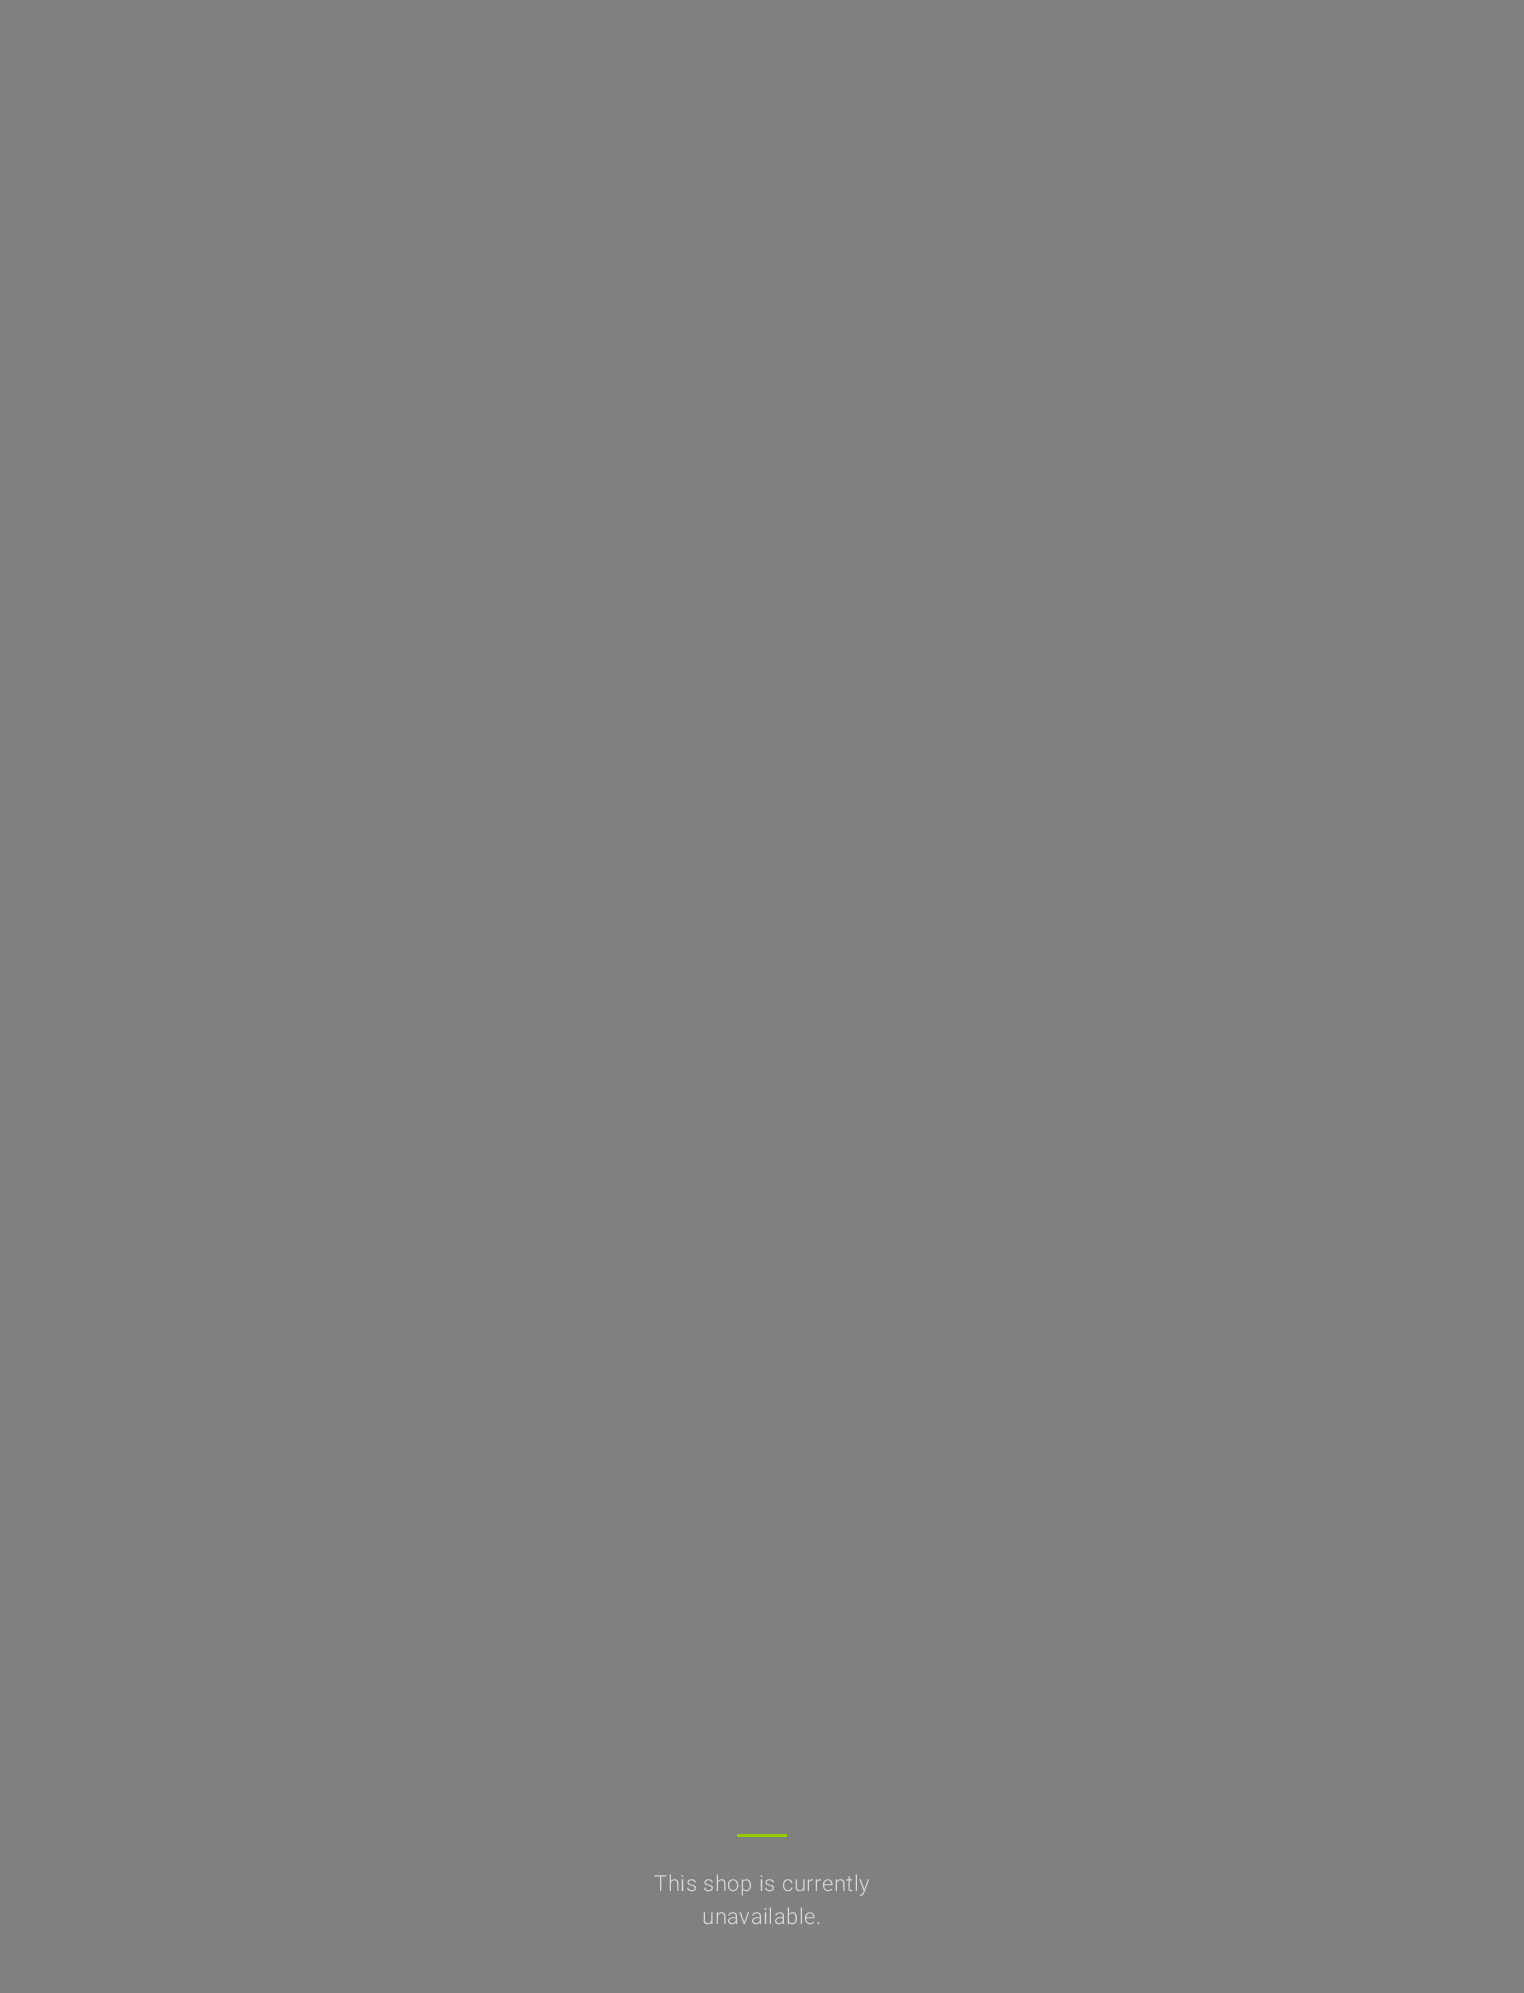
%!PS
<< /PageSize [1524 1993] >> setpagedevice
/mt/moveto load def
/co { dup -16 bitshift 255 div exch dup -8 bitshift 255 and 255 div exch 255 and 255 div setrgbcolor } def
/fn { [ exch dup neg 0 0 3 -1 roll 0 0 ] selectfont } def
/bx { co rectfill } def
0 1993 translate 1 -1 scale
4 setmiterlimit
0 0 1524 1993 16#808080 bx
737 1834 50 3 16#99CC00 bx
/Roboto-Light 22 fn
16#D9D9D9 co
654 1891 mt .5 0 (This shop is currently) ashow
702 1924 mt .5 0 (unavailable.) ashow
showpage
